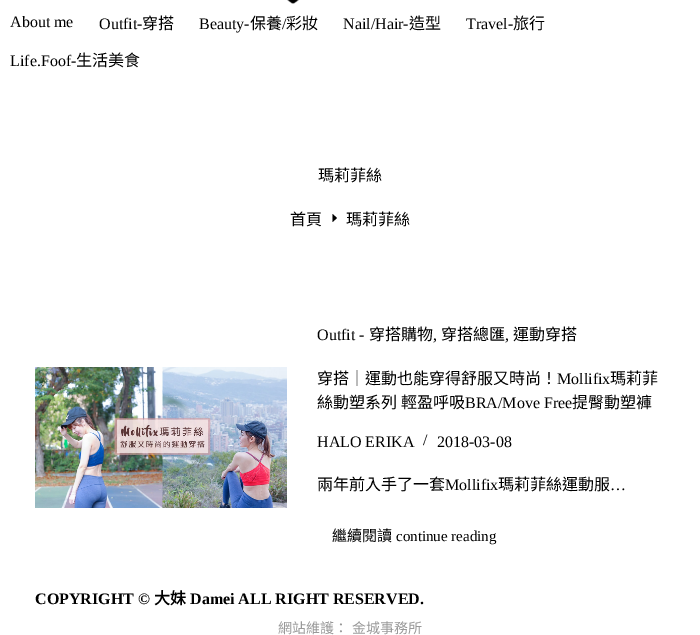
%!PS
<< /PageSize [700 635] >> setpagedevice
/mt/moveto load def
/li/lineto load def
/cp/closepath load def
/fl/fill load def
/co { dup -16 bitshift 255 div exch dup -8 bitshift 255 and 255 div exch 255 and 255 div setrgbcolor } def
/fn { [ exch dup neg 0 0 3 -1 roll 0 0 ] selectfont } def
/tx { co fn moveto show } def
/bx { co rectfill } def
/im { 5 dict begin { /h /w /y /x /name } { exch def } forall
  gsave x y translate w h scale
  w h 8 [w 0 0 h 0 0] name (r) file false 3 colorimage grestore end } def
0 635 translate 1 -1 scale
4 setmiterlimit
0 0 700 635 16#FFFFFF bx
(media/1.raw) 287 0 12 4 im
16#000000 co
332.5 214 mt 337 218 li 332.5 222 li cp fl
(media/2.raw) 35 367 252 141 im
(About me) 10 27 /LiberationSerif-Regular 16 16#000000 tx
(Outfit-) 99 29 /LiberationSerif-Regular 16 16#000000 tx
(穿搭) 142 29 /NotoSansCJKTC-Regular 16 16#000000 tx
(Beauty-) 199 29 /LiberationSerif-Regular 16 16#000000 tx
(保養) 250 29 /NotoSansCJKTC-Regular 16 16#000000 tx
(/) 282 29 /LiberationSerif-Regular 16 16#000000 tx
(彩妝) 286 29 /NotoSansCJKTC-Regular 16 16#000000 tx
(Nail/Hair-) 343 29 /LiberationSerif-Regular 16 16#000000 tx
(造型) 409 29 /NotoSansCJKTC-Regular 16 16#000000 tx
(Travel-) 466 29 /LiberationSerif-Regular 16 16#000000 tx
(旅行) 513 29 /NotoSansCJKTC-Regular 16 16#000000 tx
(Life.Foof-) 10 66 /LiberationSerif-Regular 16 16#000000 tx
(生活美食) 76 66 /NotoSansCJKTC-Regular 16 16#000000 tx
(瑪莉菲絲) 318 181 /NotoSansCJKTC-Regular 16 16#000000 tx
(首頁) 290 225 /NotoSansCJKTC-Regular 16 16#000000 tx
(瑪莉菲絲) 346 225 /NotoSansCJKTC-Regular 16 16#000000 tx
(Outfit -) 317 340 /LiberationSerif-Regular 16 16#000000 tx
(穿搭購物) 369 340 /NotoSansCJKTC-Regular 16 16#000000 tx
(,) 433 340 /LiberationSerif-Regular 16 16#000000 tx
(穿搭總匯) 441 340 /NotoSansCJKTC-Regular 16 16#000000 tx
(,) 505 340 /LiberationSerif-Regular 16 16#000000 tx
(運動穿搭) 513 340 /NotoSansCJKTC-Regular 16 16#000000 tx
(穿搭｜運動也能穿得舒服又時尚！) 317 384 /NotoSansCJKTC-Regular 16 16#000000 tx
(Mollifix) 557 384 /LiberationSerif-Regular 16 16#000000 tx
(瑪莉菲) 610 384 /NotoSansCJKTC-Regular 16 16#000000 tx
(絲動塑系列) 317 408 /NotoSansCJKTC-Regular 16 16#000000 tx
(輕盈呼吸) 401 408 /NotoSansCJKTC-Regular 16 16#000000 tx
(BRA/Move Free) 465 408 /LiberationSerif-Regular 16 16#000000 tx
(提臀動塑褲) 572 408 /NotoSansCJKTC-Regular 16 16#000000 tx
(HALO ERIKA) 317 447 /LiberationSerif-Regular 16 16#000000 tx
(/) 423 445 /LiberationSerif-Regular 16 16#000000 tx
(2018-03-08) 437 447 /LiberationSerif-Regular 16 16#000000 tx
(兩年前入手了一套) 317 490 /NotoSansCJKTC-Regular 16 16#000000 tx
(Mollifix) 445 490 /LiberationSerif-Regular 16 16#000000 tx
(瑪莉菲絲運動服) 498 490 /NotoSansCJKTC-Regular 16 16#000000 tx
(…) 610 490 /LiberationSerif-Regular 16 16#000000 tx
(繼續閱讀) 332 541 /NotoSansCJKTC-Regular 15 16#000000 tx
(continue reading) 396 541 /LiberationSerif-Regular 15 16#000000 tx
(COPYRIGHT ©) 35 604 /LiberationSerif-Bold 16 16#000000 tx
(大妹) 154 604 /NotoSansCJKTC-Bold 16 16#000000 tx
(Damei ALL RIGHT RESERVED.) 190 604 /LiberationSerif-Bold 16 16#000000 tx
(網站維護：) 278 633 /NotoSansCJKTC-Regular 14 16#999999 tx
(金城事務所) 352 633 /NotoSansCJKTC-Regular 14 16#999999 tx
showpage
